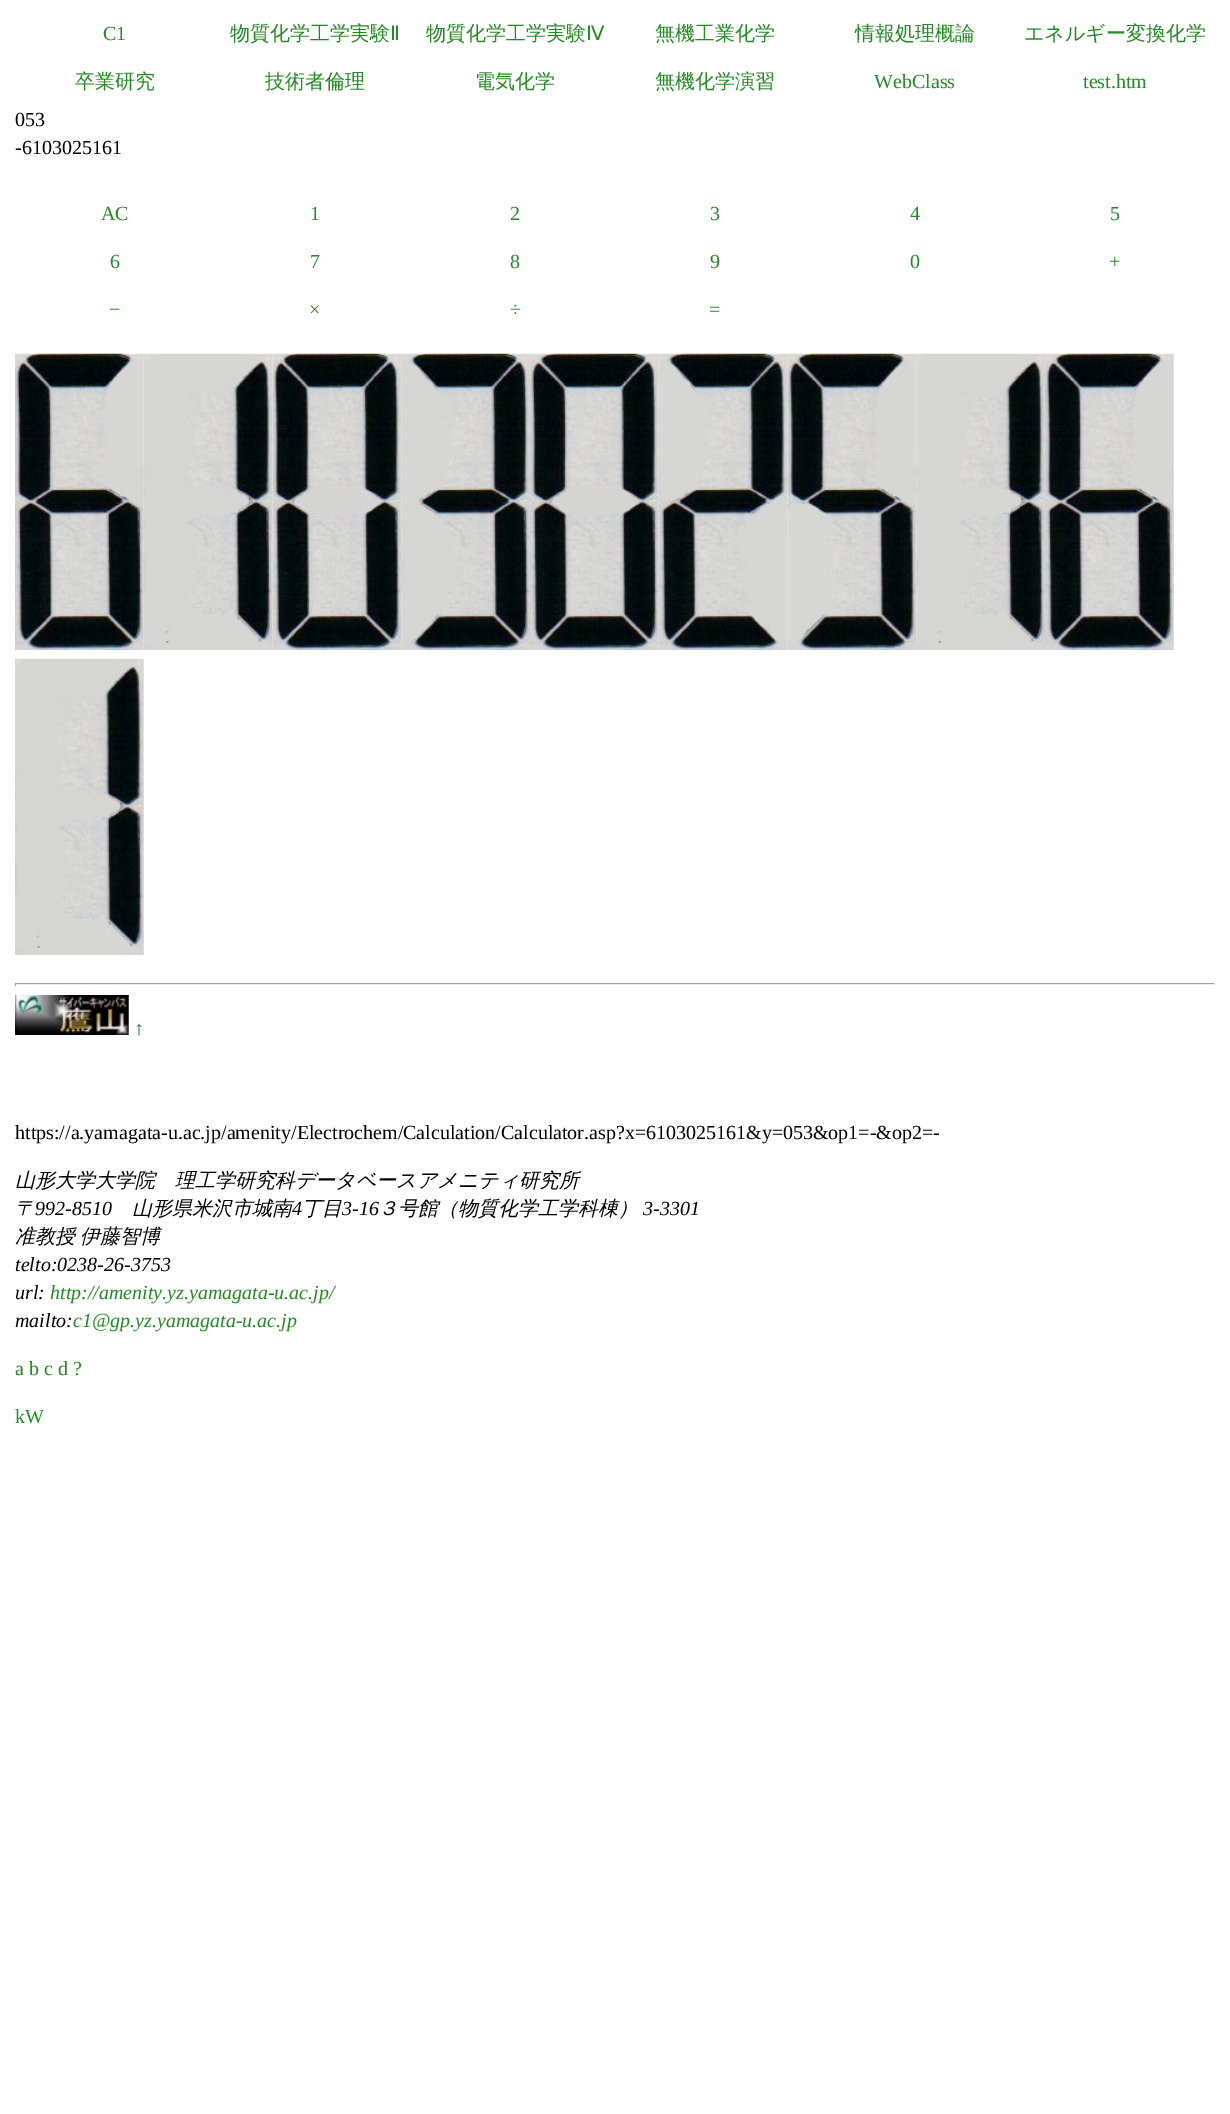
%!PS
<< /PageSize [1230 2114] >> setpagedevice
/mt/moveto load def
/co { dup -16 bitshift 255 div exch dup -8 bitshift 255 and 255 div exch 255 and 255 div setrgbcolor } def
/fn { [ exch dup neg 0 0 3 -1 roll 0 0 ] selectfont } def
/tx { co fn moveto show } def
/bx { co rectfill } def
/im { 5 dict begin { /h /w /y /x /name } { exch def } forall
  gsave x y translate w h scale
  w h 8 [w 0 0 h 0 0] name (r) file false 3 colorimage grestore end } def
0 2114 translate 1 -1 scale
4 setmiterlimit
0 0 1230 2114 16#FFFFFF bx
(media/1.raw) 15 353 129 297 im
(media/2.raw) 143 353 130 297 im
(media/3.raw) 272 353 130 297 im
(media/4.raw) 401 353 129 297 im
(media/5.raw) 530 353 129 297 im
(media/6.raw) 658 353 130 297 im
(media/7.raw) 787 353 130 297 im
(media/8.raw) 916 353 129 297 im
(media/9.raw) 1045 353 129 297 im
(media/10.raw) 15 658 129 297 im
15 983 1200 1 16#9F9F9F bx
1214 983 1 3 16#EEEEEE bx
15 984 1200 1 16#EEEEEE bx
15 983 1 3 16#9F9F9F bx
(media/11.raw) 15 995 114 40 im
(C1) 103 40 /LiberationSerif-Regular 20 16#228B22 tx
(物質化学工学実験) 230 40 /WenQuanYiZenHei-Medium 20 16#228B22 tx
(Ⅱ) 390 40 /DejaVuSans-Regular 20 16#228B22 tx
(物質化学工学実験) 426 40 /WenQuanYiZenHei-Medium 20 16#228B22 tx
(Ⅳ) 586 40 /DejaVuSans-Regular 20 16#228B22 tx
(無機工業化学) 655 40 /WenQuanYiZenHei-Medium 20 16#228B22 tx
(情報処理概論) 855 40 /WenQuanYiZenHei-Medium 20 16#228B22 tx
(エネルギー変換化学) 1024 40 /WenQuanYiZenHei-Medium 20 16#228B22 tx
(卒業研究) 75 88 /WenQuanYiZenHei-Medium 20 16#228B22 tx
(技術者倫理) 265 88 /WenQuanYiZenHei-Medium 20 16#228B22 tx
(電気化学) 475 88 /WenQuanYiZenHei-Medium 20 16#228B22 tx
(無機化学演習) 655 88 /WenQuanYiZenHei-Medium 20 16#228B22 tx
(WebClass) 874 88 /LiberationSerif-Regular 20 16#228B22 tx
(test.htm) 1083 88 /LiberationSerif-Regular 20 16#228B22 tx
(053) 15 126 /LiberationSerif-Regular 20 16#000000 tx
(-6103025161) 15 154 /LiberationSerif-Regular 20 16#000000 tx
(AC) 101 220 /LiberationSerif-Regular 20 16#228B22 tx
(1) 310 220 /LiberationSerif-Regular 20 16#228B22 tx
(2) 510 220 /LiberationSerif-Regular 20 16#228B22 tx
(3) 710 220 /LiberationSerif-Regular 20 16#228B22 tx
(4) 910 220 /LiberationSerif-Regular 20 16#228B22 tx
(5) 1110 220 /LiberationSerif-Regular 20 16#228B22 tx
(6) 110 268 /LiberationSerif-Regular 20 16#228B22 tx
(7) 310 268 /LiberationSerif-Regular 20 16#228B22 tx
(8) 510 268 /LiberationSerif-Regular 20 16#228B22 tx
(9) 710 268 /LiberationSerif-Regular 20 16#228B22 tx
(0) 910 268 /LiberationSerif-Regular 20 16#228B22 tx
(+) 1109 268 /LiberationSerif-Regular 20 16#228B22 tx
(−) 109 316 /LiberationSerif-Regular 20 16#228B22 tx
(×) 309 316 /LiberationSerif-Regular 20 16#228B22 tx
(÷) 510 316 /LiberationSerif-Regular 20 16#228B22 tx
(=) 709 316 /LiberationSerif-Regular 20 16#228B22 tx
(↑) 134 1035 /LiberationSerif-Regular 20 16#228B22 tx
(https://a.yamagata-u.ac.jp/amenity/Electrochem/Calculation/Calculator.asp?x=6103025161&y=053&op1=-&op2=-) 15 1139 /LiberationSerif-Regular 20 16#000000 tx
(山形大学大学院　理工学研究科データベースアメニティ研究所) 15 1187 /WenQuanYiZenHei-MediumItalic 20 16#000000 tx
(〒) 15 1215 /WenQuanYiZenHei-MediumItalic 20 16#000000 tx
(992-8510) 35 1215 /LiberationSerif-Italic 20 16#000000 tx
(山形県米沢市城南) 132 1215 /WenQuanYiZenHei-MediumItalic 20 16#000000 tx
(4) 292 1215 /LiberationSerif-Italic 20 16#000000 tx
(丁目) 302 1215 /WenQuanYiZenHei-MediumItalic 20 16#000000 tx
(3-16) 342 1215 /LiberationSerif-Italic 20 16#000000 tx
(３号館（物質化学工学科棟）) 378 1215 /WenQuanYiZenHei-MediumItalic 20 16#000000 tx
(3-3301) 643 1215 /LiberationSerif-Italic 20 16#000000 tx
/WenQuanYiZenHei-MediumItalic 20 fn
15 1243 mt -1 0 32 (准教授 伊藤智博) widthshow
(telto:0238-26-3753) 15 1271 /LiberationSerif-Italic 20 16#000000 tx
(url:) 15 1299 /LiberationSerif-Italic 20 16#000000 tx
(http://amenity.yz.yamagata-u.ac.jp/) 50 1299 /LiberationSerif-Italic 20 16#228B22 tx
(mailto:) 15 1327 /LiberationSerif-Italic 20 16#000000 tx
(c1@gp.yz.yamagata-u.ac.jp) 73 1327 /LiberationSerif-Italic 20 16#228B22 tx
(a b c d ?) 15 1375 /LiberationSerif-Regular 20 16#228B22 tx
(kW) 15 1423 /LiberationSerif-Regular 20 16#228B22 tx
showpage
